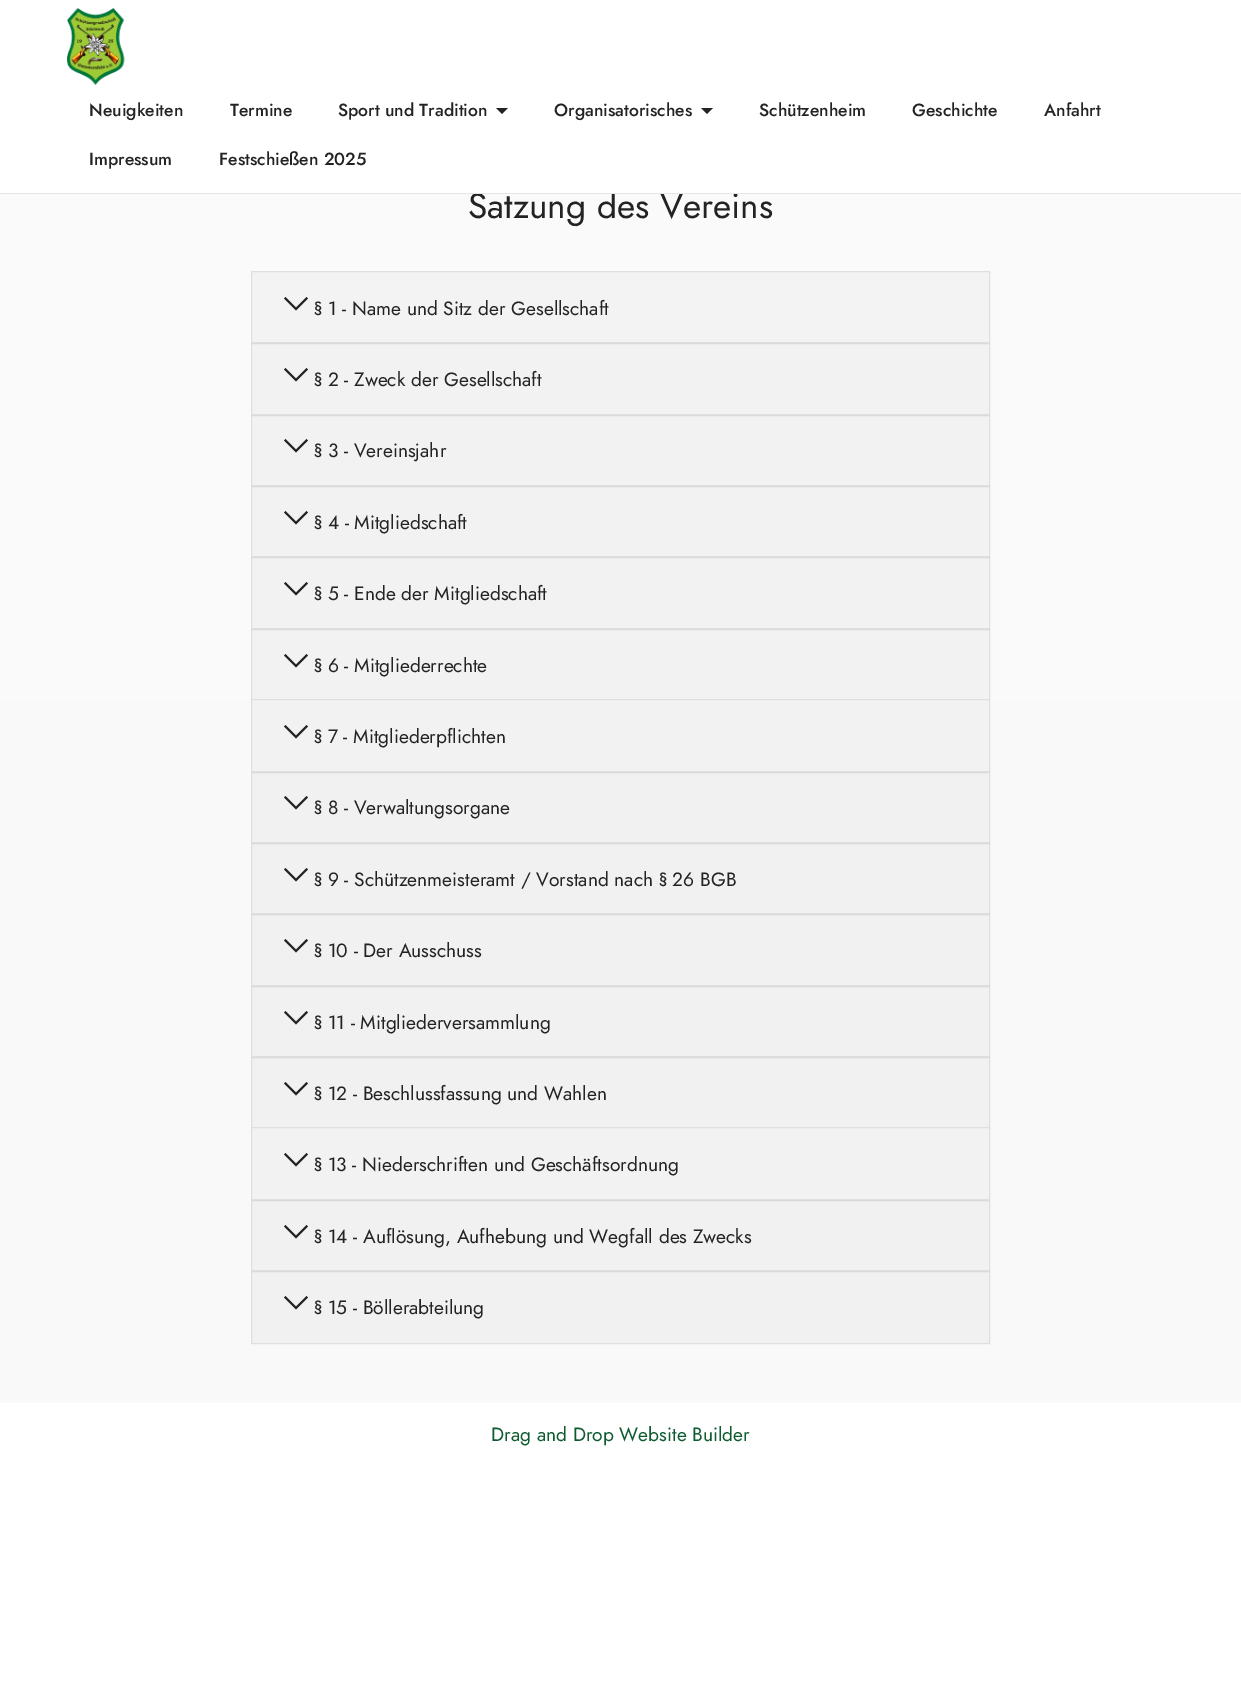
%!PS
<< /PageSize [1241 1708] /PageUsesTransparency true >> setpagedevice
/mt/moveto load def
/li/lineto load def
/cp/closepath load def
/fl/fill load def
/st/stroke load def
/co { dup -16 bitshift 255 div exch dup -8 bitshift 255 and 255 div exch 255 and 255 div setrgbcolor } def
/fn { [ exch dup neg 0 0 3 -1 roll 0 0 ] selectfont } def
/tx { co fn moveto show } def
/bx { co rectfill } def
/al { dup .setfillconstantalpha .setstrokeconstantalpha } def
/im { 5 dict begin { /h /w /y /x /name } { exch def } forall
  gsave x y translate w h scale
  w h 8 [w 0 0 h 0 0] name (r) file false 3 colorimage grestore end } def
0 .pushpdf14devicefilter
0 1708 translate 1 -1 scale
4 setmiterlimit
0 0 1241 1708 16#FFFFFF bx
(media/1.raw) 67 8 58 77 im
16#232323 co
496 108 mt 508 108 li 502 114 li cp fl
701 108 mt 713 108 li 707 114 li cp fl
0 194 1241 506 16#FAFAFA bx
252 272 737 70 16#F3F3F3 bx
16#DFDFDF co
251.5 271.5 738 72 rectstroke
16#232323 co
285.5 297 mt 296 307.5 li 306.5 297 li 308 298.5 li 296 310.5 li 284 298.5 li cp fl
0.03 al
252 343 737 71 16#000000 bx
1 al
16#DFDFDF co
251.5 342.5 738 73 rectstroke
16#232323 co
285.5 368 mt 296 378.5 li 306.5 368 li 308 369.5 li 296 381.5 li 284 369.5 li cp fl
0.03 al
252 415 737 70 16#000000 bx
1 al
16#DFDFDF co
251.5 414.5 738 72 rectstroke
16#232323 co
285.5 439 mt 296 449.5 li 306.5 439 li 308 440.5 li 296 452.5 li 284 440.5 li cp fl
0.03 al
252 486 737 70 16#000000 bx
1 al
16#DFDFDF co
251.5 485.5 738 72 rectstroke
16#232323 co
285.5 511 mt 296 521.5 li 306.5 511 li 308 512.5 li 296 524.5 li 284 512.5 li cp fl
0.03 al
252 557 737 71 16#000000 bx
1 al
16#DFDFDF co
251.5 556.5 738 73 rectstroke
16#232323 co
285.5 582 mt 296 592.5 li 306.5 582 li 308 583.5 li 296 595.5 li 284 583.5 li cp fl
0.03 al
252 629 737 70 16#000000 bx
1 al
16#DFDFDF co
251.5 628.5 738 72 rectstroke
16#232323 co
285.5 654 mt 296 664.5 li 306.5 654 li 308 655.5 li 296 667.5 li 284 655.5 li cp fl
0 700 1241 428 16#F9F9F9 bx
252 700 737 71 16#F2F2F2 bx
16#DFDFDF co
251.5 699.5 738 73 rectstroke
16#232323 co
285.5 725 mt 296 735.5 li 306.5 725 li 308 726.5 li 296 738.5 li 284 726.5 li cp fl
0.03 al
252 772 737 70 16#000000 bx
1 al
16#DFDFDF co
251.5 771.5 738 72 rectstroke
16#232323 co
285.5 796 mt 296 806.5 li 306.5 796 li 308 797.5 li 296 809.5 li 284 797.5 li cp fl
0.03 al
252 843 737 70 16#000000 bx
1 al
16#DFDFDF co
251.5 842.5 738 72 rectstroke
16#232323 co
285.5 868 mt 296 878.5 li 306.5 868 li 308 869.5 li 296 881.5 li 284 869.5 li cp fl
0.03 al
252 914 737 71 16#000000 bx
1 al
16#DFDFDF co
251.5 913.5 738 73 rectstroke
16#232323 co
285.5 939 mt 296 949.5 li 306.5 939 li 308 940.5 li 296 952.5 li 284 940.5 li cp fl
0.03 al
252 986 737 70 16#000000 bx
1 al
16#DFDFDF co
251.5 985.5 738 72 rectstroke
16#232323 co
285.5 1011 mt 296 1021.5 li 306.5 1011 li 308 1012.5 li 296 1024.5 li 284 1012.5 li cp fl
0.03 al
252 1057 737 70 16#000000 bx
1 al
16#DFDFDF co
251.5 1056.5 738 72 rectstroke
16#232323 co
285.5 1082 mt 296 1092.5 li 306.5 1082 li 308 1083.5 li 296 1095.5 li 284 1083.5 li cp fl
0 1128 1241 275 16#F9F9F9 bx
252 1128 737 71 16#F2F2F2 bx
16#DFDFDF co
251.5 1127.5 738 73 rectstroke
16#232323 co
285.5 1153 mt 296 1163.5 li 306.5 1153 li 308 1154.5 li 296 1166.5 li 284 1154.5 li cp fl
0.03 al
252 1200 737 70 16#000000 bx
1 al
16#DFDFDF co
251.5 1199.5 738 72 rectstroke
16#232323 co
285.5 1225 mt 296 1235.5 li 306.5 1225 li 308 1226.5 li 296 1238.5 li 284 1226.5 li cp fl
0.03 al
16#000000 co
251.5 1270.5 mt 989.5 1270.5 li 989.5 1343.5 li 251.5 1343.5 li cp fl
1 al
16#DFDFDF co
251.5 1270.5 mt 989.5 1270.5 li 989.5 1343.5 li 251.5 1343.5 li cp st
16#232323 co
285.5 1296 mt 296 1306.5 li 306.5 1296 li 308 1297.5 li 296 1309.5 li 284 1297.5 li cp fl
(Neuigkeiten) 89 116 /Jost-Medium 17.5 16#232323 tx
(Termine) 230 116 /Jost-Medium 17.5 16#232323 tx
(Sport und Tradition) 338 116 /Jost-Medium 17.5 16#232323 tx
(Organisatorisches) 554 116 /Jost-Medium 17.5 16#232323 tx
(Schützenheim) 759 116 /Jost-Medium 17.5 16#232323 tx
(Geschichte) 912 116 /Jost-Medium 17.5 16#232323 tx
(Anfahrt) 1044 116 /Jost-Medium 17.5 16#232323 tx
(Impressum) 89 165 /Jost-Medium 17.5 16#232323 tx
(Festschießen 2025) 219 165 /Jost-Medium 17.5 16#232323 tx
(Satzung des Vereins) 468 218 /Jost-Regular 35.25 16#232323 tx
0 193 1241 1 16#E6E6E6 bx
611 190 4 3 16#FFFFFF bx
(§ 1 - Name und Sitz der Gesellschaft) 314 315 /Jost-Regular 19.2 16#232323 tx
(§ 2 - Zweck der Gesellschaft) 314 386 /Jost-Regular 19.2 16#232323 tx
(§ 3 - Vereinsjahr) 314 457 /Jost-Regular 19.2 16#232323 tx
(§ 4 - Mitgliedschaft) 314 529 /Jost-Regular 19.2 16#232323 tx
(§ 5 - Ende der Mitgliedschaft) 314 600 /Jost-Regular 19.2 16#232323 tx
(§ 6 - Mitgliederrechte) 314 672 /Jost-Regular 19.2 16#232323 tx
(§ 7 - Mitgliederpflichten) 314 743 /Jost-Regular 19.2 16#232323 tx
(§ 8 - Verwaltungsorgane) 314 814 /Jost-Regular 19.2 16#232323 tx
(§ 9 - Schützenmeisteramt / Vorstand nach § 26 BGB) 314 886 /Jost-Regular 19.2 16#232323 tx
(§ 10 - Der Ausschuss) 314 957 /Jost-Regular 19.2 16#232323 tx
(§ 11 - Mitgliederversammlung) 314 1029 /Jost-Regular 19.2 16#232323 tx
(§ 12 - Beschlussfassung und Wahlen) 314 1100 /Jost-Regular 19.2 16#232323 tx
(§ 13 - Niederschriften und Geschäftsordnung) 314 1171 /Jost-Regular 19.2 16#232323 tx
(§ 14 - Auflösung, Aufhebung und Wegfall des Zwecks) 314 1243 /Jost-Regular 19.2 16#232323 tx
(§ 15 - Böllerabteilung) 314 1314 /Jost-Regular 19.2 16#232323 tx
(Drag and Drop Website Builder) 491 1441 /Jost-Regular 19.2 16#0F5B30 tx
.poppdf14devicefilter showpage
